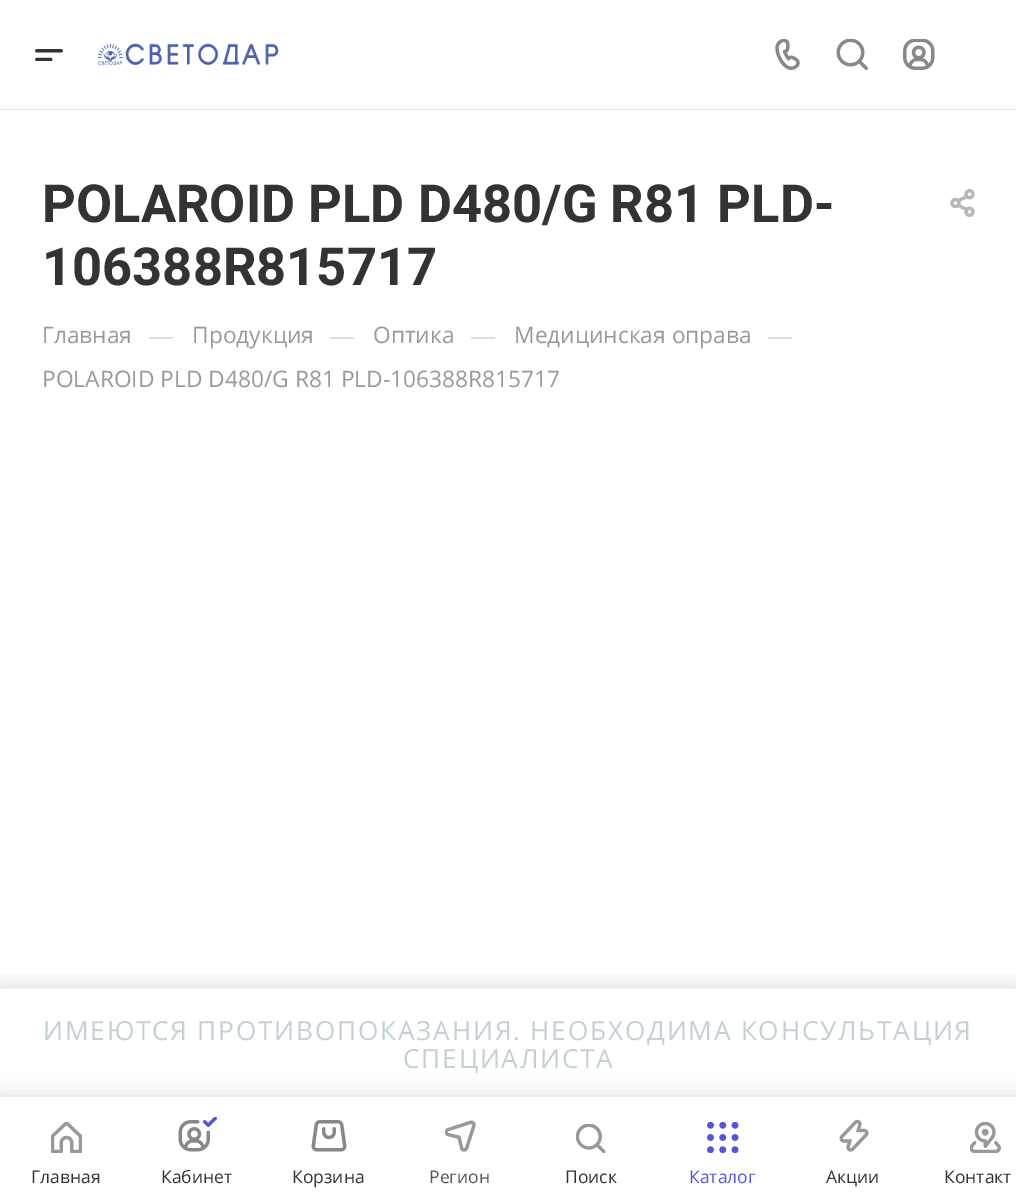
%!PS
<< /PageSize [1016 1194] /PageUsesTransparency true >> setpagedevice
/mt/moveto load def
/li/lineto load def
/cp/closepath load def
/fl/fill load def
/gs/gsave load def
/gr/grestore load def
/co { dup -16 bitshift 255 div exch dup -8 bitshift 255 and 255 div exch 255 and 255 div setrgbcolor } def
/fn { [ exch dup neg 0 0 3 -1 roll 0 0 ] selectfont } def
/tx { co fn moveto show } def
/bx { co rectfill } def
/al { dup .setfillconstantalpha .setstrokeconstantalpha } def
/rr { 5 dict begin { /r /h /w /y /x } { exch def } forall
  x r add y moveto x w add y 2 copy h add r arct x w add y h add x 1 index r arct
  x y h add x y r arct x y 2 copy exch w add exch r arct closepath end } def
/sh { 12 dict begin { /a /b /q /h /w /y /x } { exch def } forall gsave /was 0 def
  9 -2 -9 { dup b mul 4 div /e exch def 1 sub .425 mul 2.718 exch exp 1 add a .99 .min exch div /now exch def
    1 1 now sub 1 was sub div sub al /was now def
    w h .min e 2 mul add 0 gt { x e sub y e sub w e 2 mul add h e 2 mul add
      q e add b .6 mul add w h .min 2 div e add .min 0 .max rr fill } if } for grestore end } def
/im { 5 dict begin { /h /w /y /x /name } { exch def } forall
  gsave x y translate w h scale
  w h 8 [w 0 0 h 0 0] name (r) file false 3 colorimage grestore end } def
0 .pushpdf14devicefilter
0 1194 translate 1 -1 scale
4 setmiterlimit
0 0 1016 1194 16#FFFFFF bx
16#E5E5E5 co
0 108 mt 0 110 li 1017 110 li 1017 2 li 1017 108 li cp fl
0 108 1016 1 16#FFFFFF bx
(media/1.raw) 35 49 28 12 im
(media/2.raw) 98 43 181 22 im
(media/3.raw) 775 39 25 31 im
(media/4.raw) 836 39 32 31 im
(media/5.raw) 903 39 32 31 im
(media/6.raw) 950 189 25 28 im
gs
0 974 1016 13 rectclip
16#000000 co
0 982 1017 110 0 9 .1 sh
gr
0 987 1016 2 16#EAEFF1 bx
16#000000 co
0 1092 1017 98 0 9 .1 sh
0 1097 1016 97 16#FFFFFF bx
(media/7.raw) 51 1122 31 31 im
(media/8.raw) 178 1117 39 35 im
(media/9.raw) 311 1120 36 32 im
(media/10.raw) 445 1120 31 32 im
(media/11.raw) 576 1124 30 29 im
(media/12.raw) 707 1122 32 31 im
(media/13.raw) 839 1119 30 33 im
(media/14.raw) 970 1122 31 31 im
(POLAROID PLD D480/G R81 PLD-) 42 222 /Roboto-Bold 52.5 16#333333 tx
(106388R815717) 42 285 /Roboto-Bold 52.5 16#333333 tx
(Главная) 42 343 /OpenSans-Regular 22.75 16#999999 tx
(—) 148 345 /OpenSans-Regular 26.25 16#DDDDDD tx
(Продукция) 192 343 /OpenSans-Regular 22.75 16#999999 tx
(—) 329 345 /OpenSans-Regular 26.25 16#DDDDDD tx
(Оптика) 373 343 /OpenSans-Regular 22.75 16#999999 tx
(—) 470 345 /OpenSans-Regular 26.25 16#DDDDDD tx
(Медицинская оправа) 514 343 /OpenSans-Regular 22.75 16#999999 tx
(—) 767 345 /OpenSans-Regular 26.25 16#DDDDDD tx
(POLAROID PLD D480/G R81 PLD-106388R815717) 42 387 /OpenSans-Regular 22.75 16#999999 tx
/OpenSans-Regular 26.25 fn
16#C3D1D5 co
43 1040 mt 1.75 0 (ИМЕЮТСЯ ПРОТИВОПОКАЗАНИЯ. НЕОБХОДИМА КОНСУЛЬТАЦИЯ) ashow
403 1068 mt 1.75 0 (СПЕЦИАЛИСТА) ashow
(Главная) 31 1183 /OpenSans-Regular 17.5 16#333333 tx
(Кабинет) 161 1183 /OpenSans-Regular 17.5 16#333333 tx
(Корзина) 292 1183 /OpenSans-Regular 17.5 16#333333 tx
(Регион) 429 1183 /OpenSans-Regular 17.5 16#555555 tx
(Поиск) 565 1183 /OpenSans-Regular 17.5 16#333333 tx
(Каталог) 689 1183 /OpenSans-Regular 17.5 16#5555DC tx
(Акции) 826 1183 /OpenSans-Regular 17.5 16#333333 tx
(Контакт) 944 1183 /OpenSans-Regular 17.5 16#333333 tx
.poppdf14devicefilter showpage
